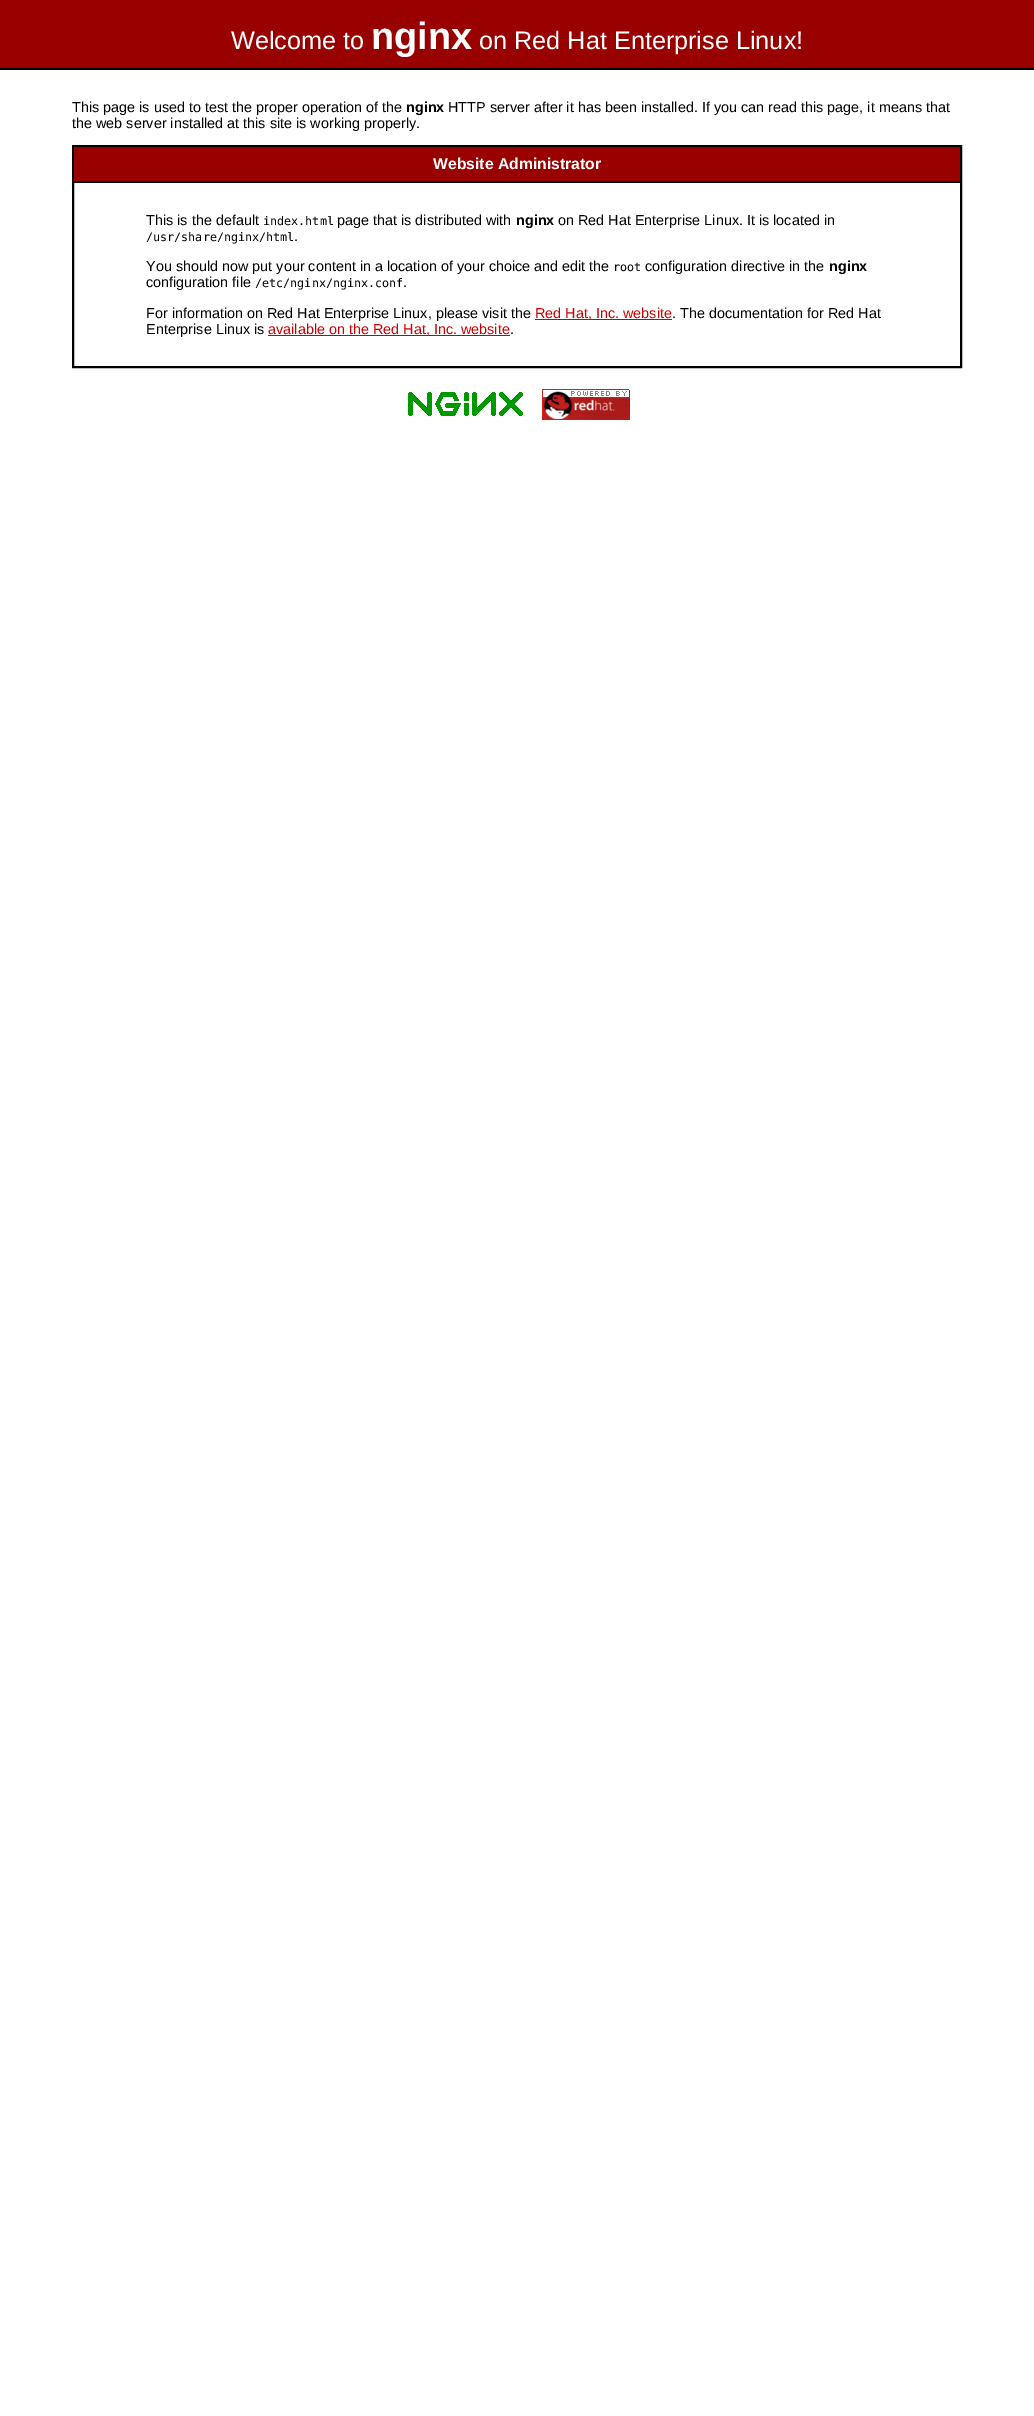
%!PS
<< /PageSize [1034 2416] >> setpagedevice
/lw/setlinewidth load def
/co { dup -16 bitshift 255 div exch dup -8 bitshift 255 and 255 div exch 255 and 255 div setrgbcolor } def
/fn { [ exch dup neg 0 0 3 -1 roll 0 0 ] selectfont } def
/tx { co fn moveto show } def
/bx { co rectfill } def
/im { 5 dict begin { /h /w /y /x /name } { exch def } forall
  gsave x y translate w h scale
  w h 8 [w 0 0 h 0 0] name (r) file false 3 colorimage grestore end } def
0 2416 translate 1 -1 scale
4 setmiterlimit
0 0 1034 2416 16#FFFFFF bx
0 0 1034 68 16#990000 bx
0 68 1034 2 16#000000 bx
2 lw
73 146 888 221 rectstroke
74 147 886 34 16#990000 bx
74 181 886 2 16#000000 bx
535 319 137 1 16#CC0000 bx
268 335 242 1 16#CC0000 bx
(media/1.raw) 408 392 115 24 im
(media/2.raw) 542 389 88 31 im
(Welcome to) 231 49 /LiberationSans-Regular 25.25 16#FFFFFF tx
(nginx) 371 49 /LiberationSans-Bold 38 16#FFFFFF tx
(on Red Hat Enterprise Linux!) 479 49 /LiberationSans-Regular 25.25 16#FFFFFF tx
(This page is used to test the proper operation of the) 72 112 /LiberationSans-Regular 14.4 16#000000 tx
(nginx) 406 112 /LiberationSans-Bold 14.4 16#000000 tx
(HTTP server after it has been installed. If you can read this page, it means that) 448 112 /LiberationSans-Regular 14.4 16#000000 tx
(the web server installed at this site is working properly.) 72 128 /LiberationSans-Regular 14.4 16#000000 tx
(Website Administrator) 433 169 /LiberationSans-Bold 15.75 16#FFFFFF tx
(This is the default) 146 225 /LiberationSans-Regular 14.4 16#000000 tx
(index.html) 263 225 /DejaVuSansMono-Regular 11.75 16#000000 tx
(page that is distributed with) 337 225 /LiberationSans-Regular 14.4 16#000000 tx
(nginx) 516 225 /LiberationSans-Bold 14.4 16#000000 tx
(on Red Hat Enterprise Linux. It is located in) 558 225 /LiberationSans-Regular 14.4 16#000000 tx
(/usr/share/nginx/html) 146 241 /DejaVuSansMono-Regular 11.75 16#000000 tx
(.) 294 241 /LiberationSans-Regular 14.4 16#000000 tx
(You should now put your content in a location of your choice and edit the) 146 271 /LiberationSans-Regular 14.4 16#000000 tx
(root) 613 271 /DejaVuSansMono-Regular 11.75 16#000000 tx
(configuration directive in the) 645 271 /LiberationSans-Regular 14.4 16#000000 tx
(nginx) 829 271 /LiberationSans-Bold 14.4 16#000000 tx
(configuration file) 146 287 /LiberationSans-Regular 14.4 16#000000 tx
(/etc/nginx/nginx.conf) 255 287 /DejaVuSansMono-Regular 11.75 16#000000 tx
(.) 403 287 /LiberationSans-Regular 14.4 16#000000 tx
(For information on Red Hat Enterprise Linux, please visit the) 146 318 /LiberationSans-Regular 14.4 16#000000 tx
(Red Hat, Inc. website) 535 318 /LiberationSans-Regular 14.4 16#CC0000 tx
(. The documentation for Red Hat) 672 318 /LiberationSans-Regular 14.4 16#000000 tx
(Enterprise Linux is) 146 334 /LiberationSans-Regular 14.4 16#000000 tx
(available on the Red Hat, Inc. website) 268 334 /LiberationSans-Regular 14.4 16#CC0000 tx
(.) 510 334 /LiberationSans-Regular 14.4 16#000000 tx
showpage
